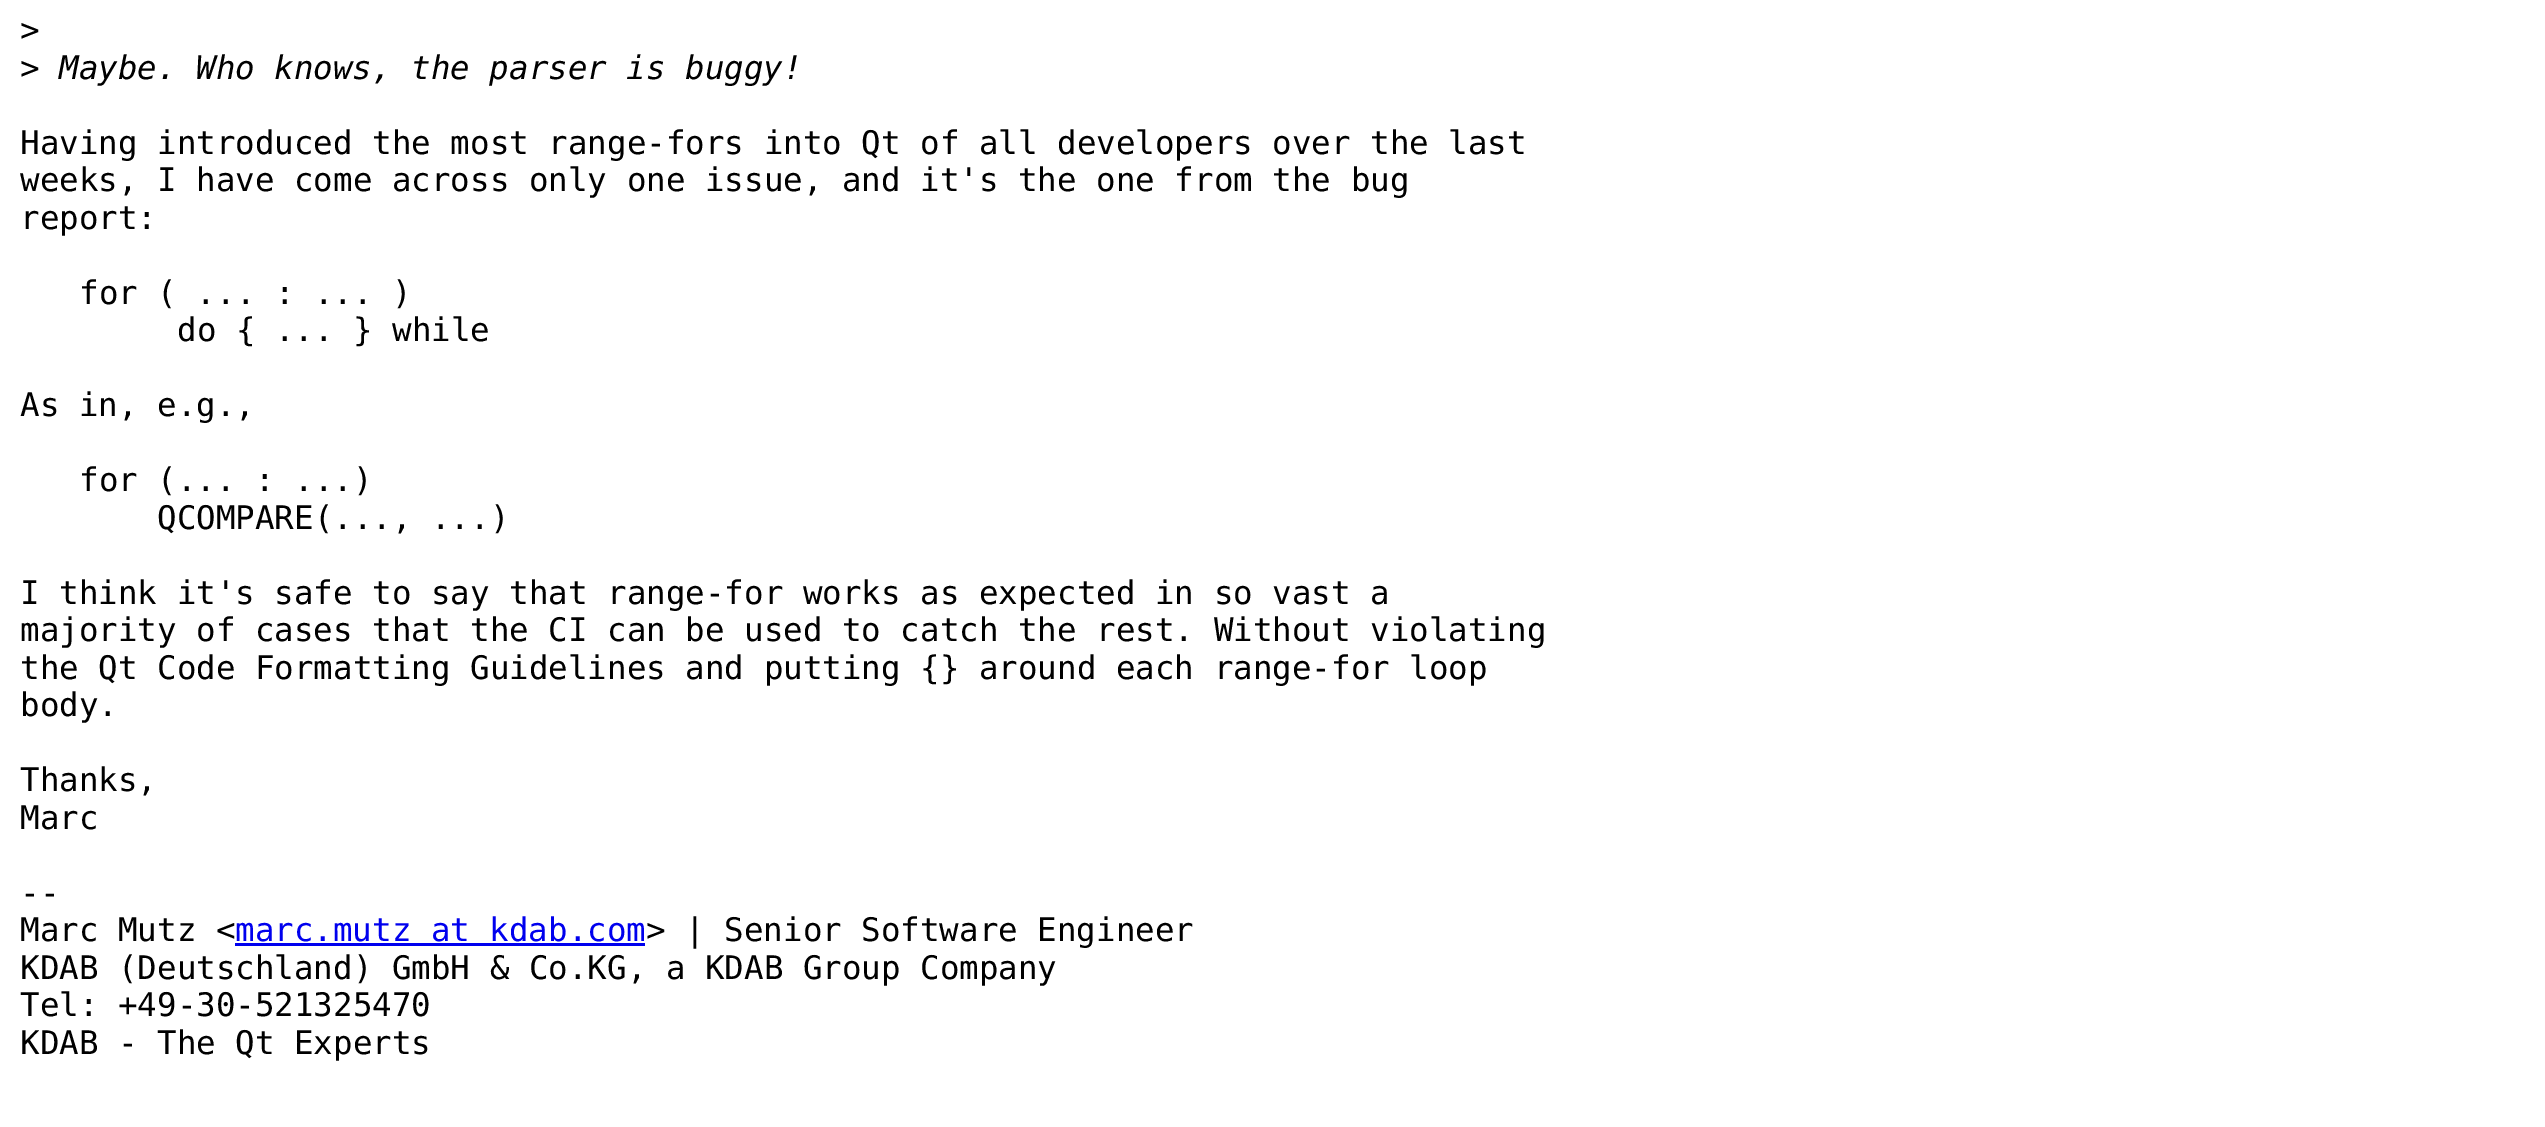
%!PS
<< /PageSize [2545 1127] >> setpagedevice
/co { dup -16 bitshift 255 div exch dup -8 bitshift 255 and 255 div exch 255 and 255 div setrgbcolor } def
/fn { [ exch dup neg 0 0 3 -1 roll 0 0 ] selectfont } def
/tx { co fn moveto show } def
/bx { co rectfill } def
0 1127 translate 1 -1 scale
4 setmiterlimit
0 0 2545 1127 16#FFFFFF bx
235 943 410 3 16#0000EE bx
(>) 20 41 /DejaVuSansMono-Regular 32.5 16#000000 tx
(>) 20 79 /DejaVuSansMono-Regular 32.5 16#000000 tx
(Maybe. Who knows, the parser is buggy!) 59 79 /DejaVuSansMono-Italic 32.5 16#000000 tx
(Having introduced the most range-fors into Qt of all developers over the last) 20 154 /DejaVuSansMono-Regular 32.5 16#000000 tx
(weeks, I have come across only one issue, and it's the one from the bug) 20 191 /DejaVuSansMono-Regular 32.5 16#000000 tx
(report:) 20 229 /DejaVuSansMono-Regular 32.5 16#000000 tx
(for \( ... : ... \)) 79 304 /DejaVuSansMono-Regular 32.5 16#000000 tx
(do { ... } while) 177 341 /DejaVuSansMono-Regular 32.5 16#000000 tx
(As in, e.g.,) 20 416 /DejaVuSansMono-Regular 32.5 16#000000 tx
(for \(... : ...\)) 79 491 /DejaVuSansMono-Regular 32.5 16#000000 tx
(QCOMPARE\(..., ...\)) 157 529 /DejaVuSansMono-Regular 32.5 16#000000 tx
(I think it's safe to say that range-for works as expected in so vast a) 20 604 /DejaVuSansMono-Regular 32.5 16#000000 tx
(majority of cases that the CI can be used to catch the rest. Without violating) 20 641 /DejaVuSansMono-Regular 32.5 16#000000 tx
(the Qt Code Formatting Guidelines and putting {} around each range-for loop) 20 679 /DejaVuSansMono-Regular 32.5 16#000000 tx
(body.) 20 716 /DejaVuSansMono-Regular 32.5 16#000000 tx
(Thanks,) 20 791 /DejaVuSansMono-Regular 32.5 16#000000 tx
(Marc) 20 829 /DejaVuSansMono-Regular 32.5 16#000000 tx
(--) 20 904 /DejaVuSansMono-Regular 32.5 16#000000 tx
(Marc Mutz <) 20 941 /DejaVuSansMono-Regular 32.5 16#000000 tx
(marc.mutz at kdab.com) 235 941 /DejaVuSansMono-Regular 32.5 16#0000EE tx
(> | Senior Software Engineer) 646 941 /DejaVuSansMono-Regular 32.5 16#000000 tx
(KDAB \(Deutschland\) GmbH & Co.KG, a KDAB Group Company) 20 979 /DejaVuSansMono-Regular 32.5 16#000000 tx
(Tel: +49-30-521325470) 20 1016 /DejaVuSansMono-Regular 32.5 16#000000 tx
(KDAB - The Qt Experts) 20 1054 /DejaVuSansMono-Regular 32.5 16#000000 tx
showpage
